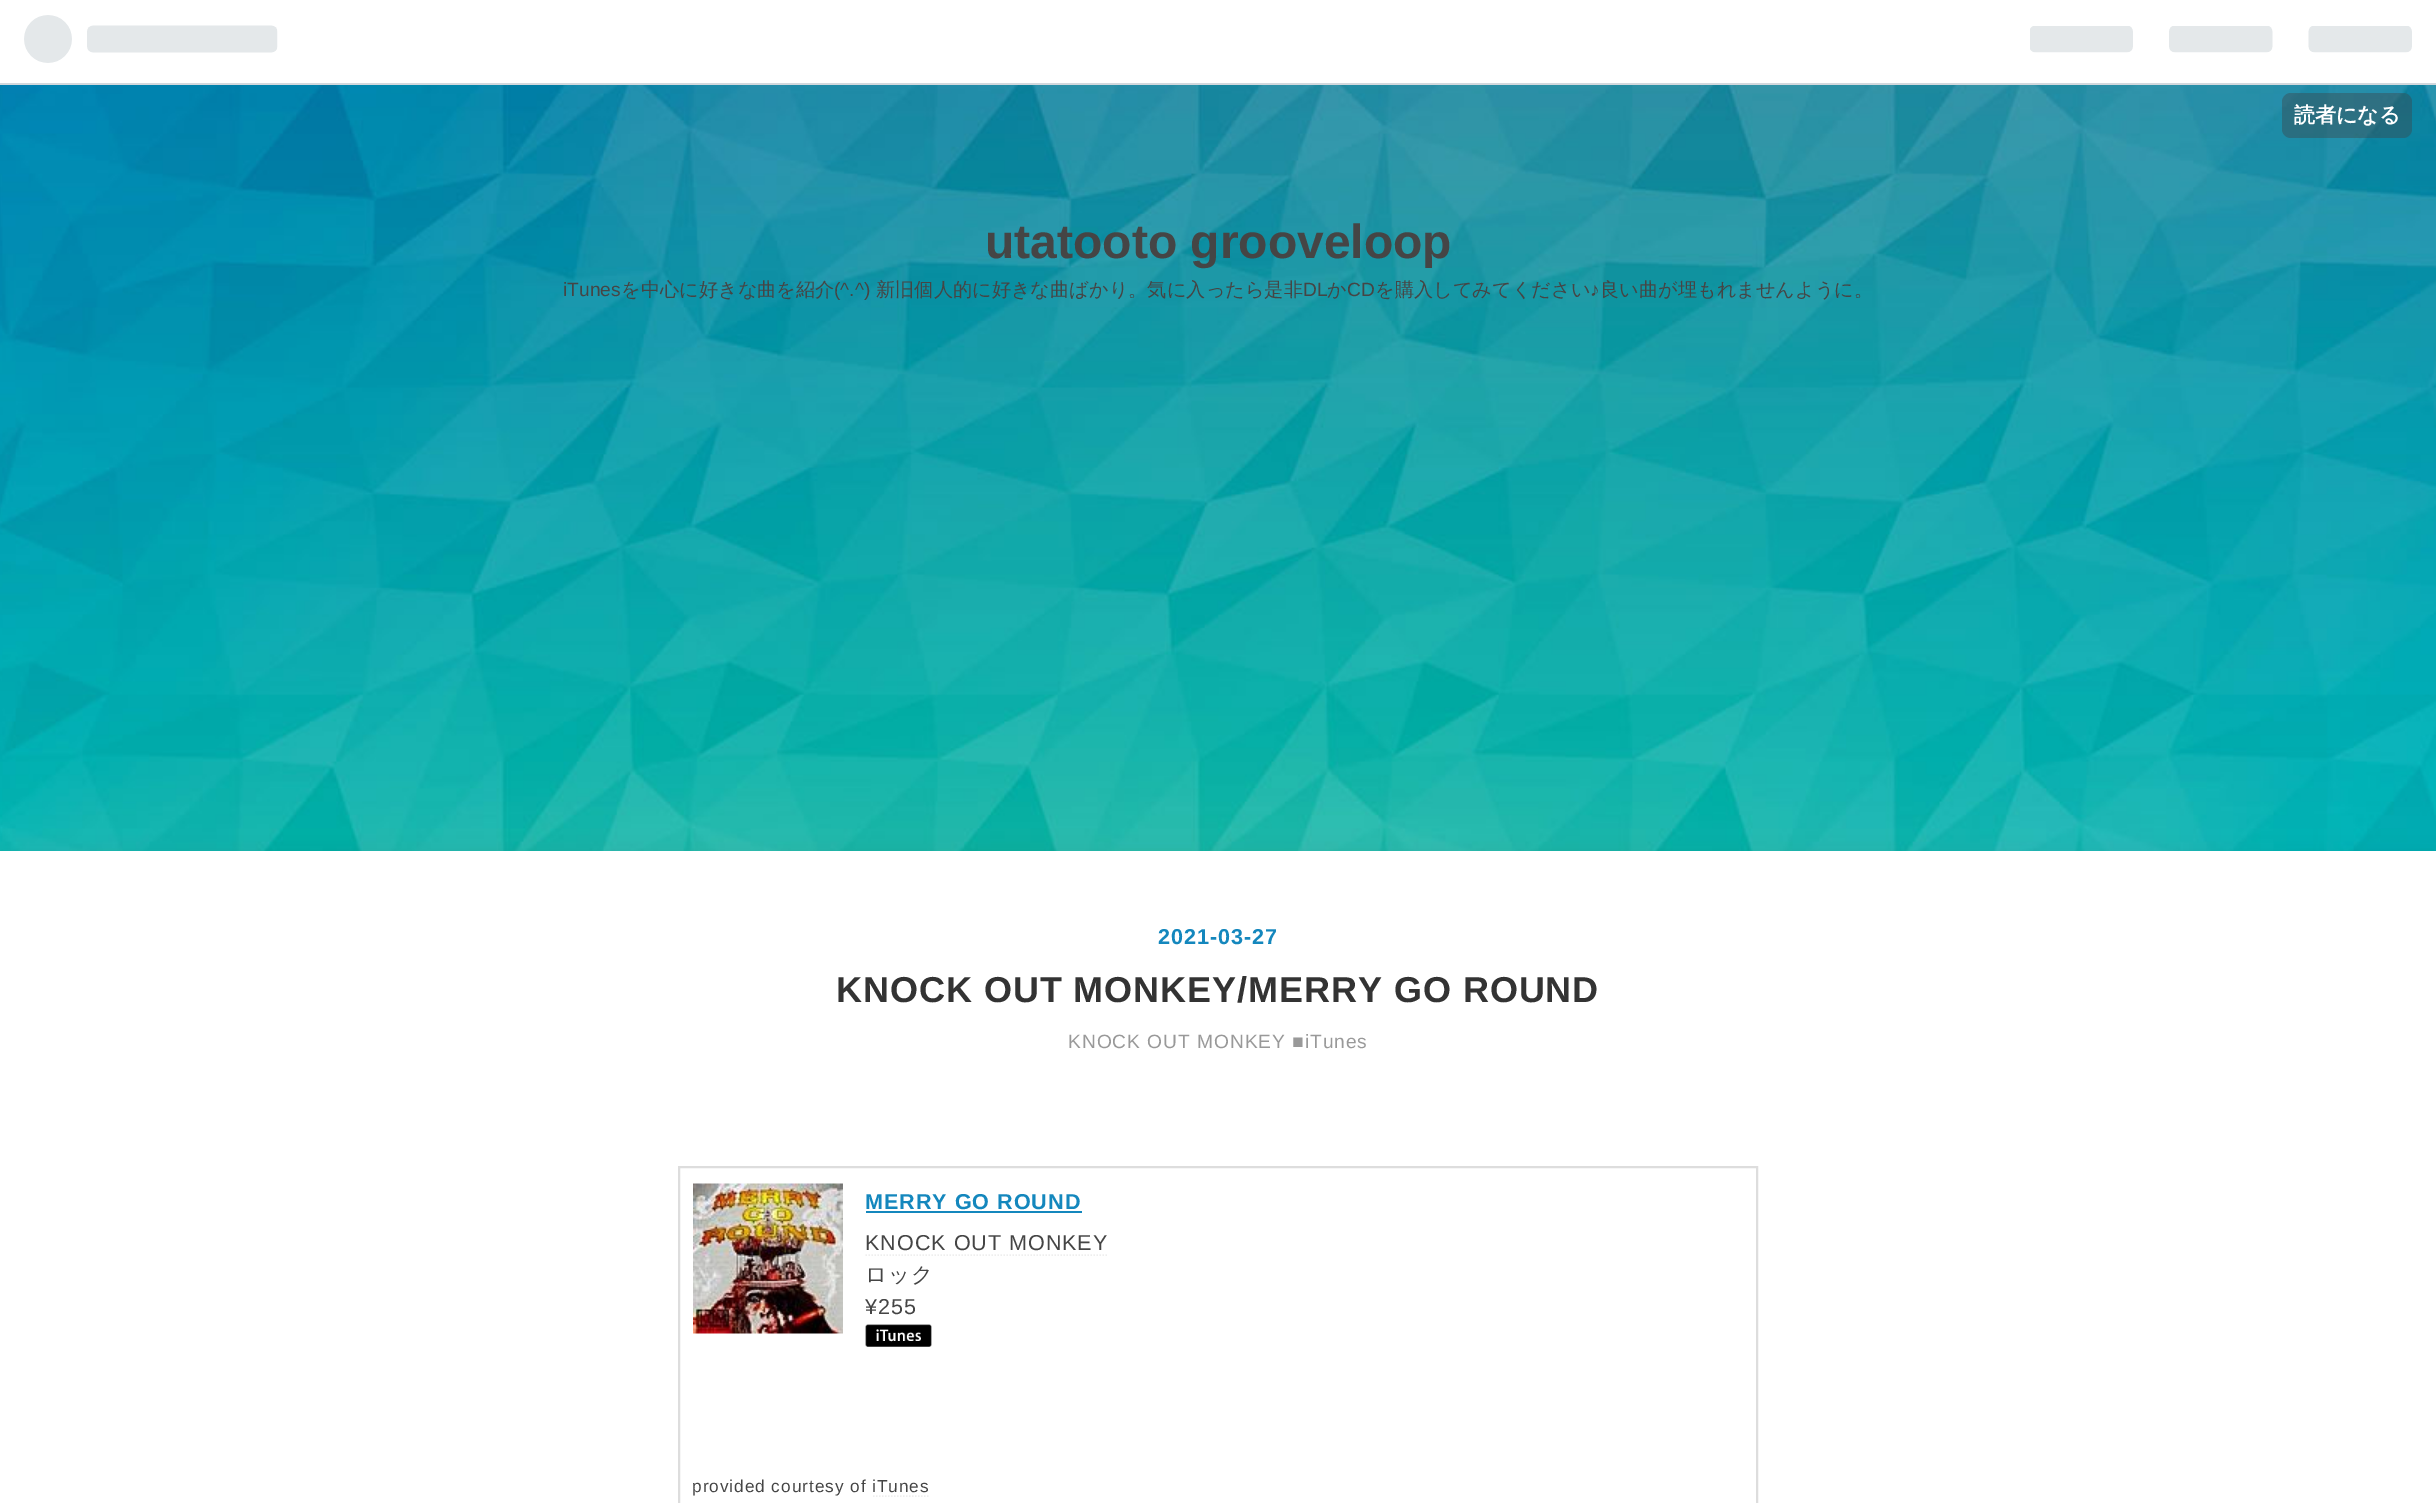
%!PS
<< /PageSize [2436 1503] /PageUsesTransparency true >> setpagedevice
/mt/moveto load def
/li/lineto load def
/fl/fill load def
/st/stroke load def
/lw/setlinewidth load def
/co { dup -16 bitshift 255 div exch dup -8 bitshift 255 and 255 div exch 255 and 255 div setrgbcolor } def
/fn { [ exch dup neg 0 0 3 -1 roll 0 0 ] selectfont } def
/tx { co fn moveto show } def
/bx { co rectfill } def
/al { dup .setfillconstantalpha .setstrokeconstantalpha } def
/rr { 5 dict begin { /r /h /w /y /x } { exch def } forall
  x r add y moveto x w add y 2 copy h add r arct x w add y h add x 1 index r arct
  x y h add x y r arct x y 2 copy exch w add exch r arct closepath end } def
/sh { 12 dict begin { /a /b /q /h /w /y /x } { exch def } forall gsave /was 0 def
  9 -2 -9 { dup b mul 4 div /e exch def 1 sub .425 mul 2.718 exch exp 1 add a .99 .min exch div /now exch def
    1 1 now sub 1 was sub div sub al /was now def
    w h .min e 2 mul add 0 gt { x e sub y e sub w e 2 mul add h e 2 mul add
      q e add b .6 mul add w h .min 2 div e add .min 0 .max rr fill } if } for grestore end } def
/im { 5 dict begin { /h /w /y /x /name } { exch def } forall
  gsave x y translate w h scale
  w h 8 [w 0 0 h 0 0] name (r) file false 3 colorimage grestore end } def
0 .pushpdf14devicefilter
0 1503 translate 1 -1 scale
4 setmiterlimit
0 0 2436 1503 16#FFFFFF bx
(media/1.raw) 0 85 2436 766 im
0 83 2436 2 16#D2D8DD bx
(media/2.raw) 24 15 254 48 im
(media/3.raw) 2030 26 382 27 im
0.4 al
16#3D4245 co
2282 93 130 45 9 rr fl
1 al
16#000000 co
0 851 2436 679 0 9 .05 sh
0 851 2436 652 16#FFFFFF bx
16#DDDDDD co
2 lw
679 1167 1078 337 rectstroke
(media/4.raw) 693 1183 150 151 im
866 1211 216 2 16#1487BD bx
16#EEEEEE co
1.5 lw
[1.5 1.5] 0 setdash
865.5 1255 mt 1108.5 1255 li st
(media/5.raw) 865 1324 67 23 im
(読者になる) 2294 122 /WenQuanYiZenHei-Bold 21 16#FFFFFF tx
(utatooto grooveloop) 985 258 /LiberationSans-Bold 48 16#454545 tx
(iTunes) 563 296 /LiberationSans-Regular 19.2 16#454545 tx
(を中心に好きな曲を紹介) 621 296 /WenQuanYiZenHei-Medium 19.2 16#454545 tx
(\(^.^\)) 834 296 /LiberationSans-Regular 19.2 16#454545 tx
(新旧個人的に好きな曲ばかり。気に入ったら是非) 876 296 /WenQuanYiZenHei-Medium 19.2 16#454545 tx
(DL) 1303 296 /LiberationSans-Regular 19.2 16#454545 tx
(か) 1327 296 /WenQuanYiZenHei-Medium 19.2 16#454545 tx
(CD) 1347 296 /LiberationSans-Regular 19.2 16#454545 tx
(を購入してみてください) 1375 296 /WenQuanYiZenHei-Medium 19.2 16#454545 tx
(♪) 1590 296 /LiberationSans-Regular 19.2 16#454545 tx
(良い曲が埋もれませんように。) 1600 296 /WenQuanYiZenHei-Medium 19.2 16#454545 tx
/LiberationSans-Bold 21.6 fn
16#1487BD co
1158 944 mt .95 0 (2021-03-27) ashow
/LiberationSans-Bold 36 fn
16#333333 co
836 1002 mt .95 0 (KNOCK OUT MONKEY/MERRY GO ROUND) ashow
/LiberationSans-Regular 19.2 fn
16#999999 co
1068 1048 mt .95 0 (KNOCK OUT MONKEY ■iTunes) ashow
/LiberationSans-Bold 21.6 fn
16#1487BD co
865 1209 mt .95 0 (MERRY GO ROUND) ashow
/LiberationSans-Regular 21.6 fn
16#454545 co
865 1250 mt .95 0 (KNOCK OUT MONKEY) ashow
/WenQuanYiZenHei-Medium 21.6 fn
865 1282 mt .95 0 (ロック) ashow
/LiberationSans-Regular 21.6 fn
865 1314 mt .95 0 (¥255) ashow
/LiberationSans-Regular 17.25 fn
692 1492 mt .95 0 (provided courtesy of iTunes) ashow
16#EEEEEE co
873 1496 mt 930 1496 li st
.poppdf14devicefilter showpage
